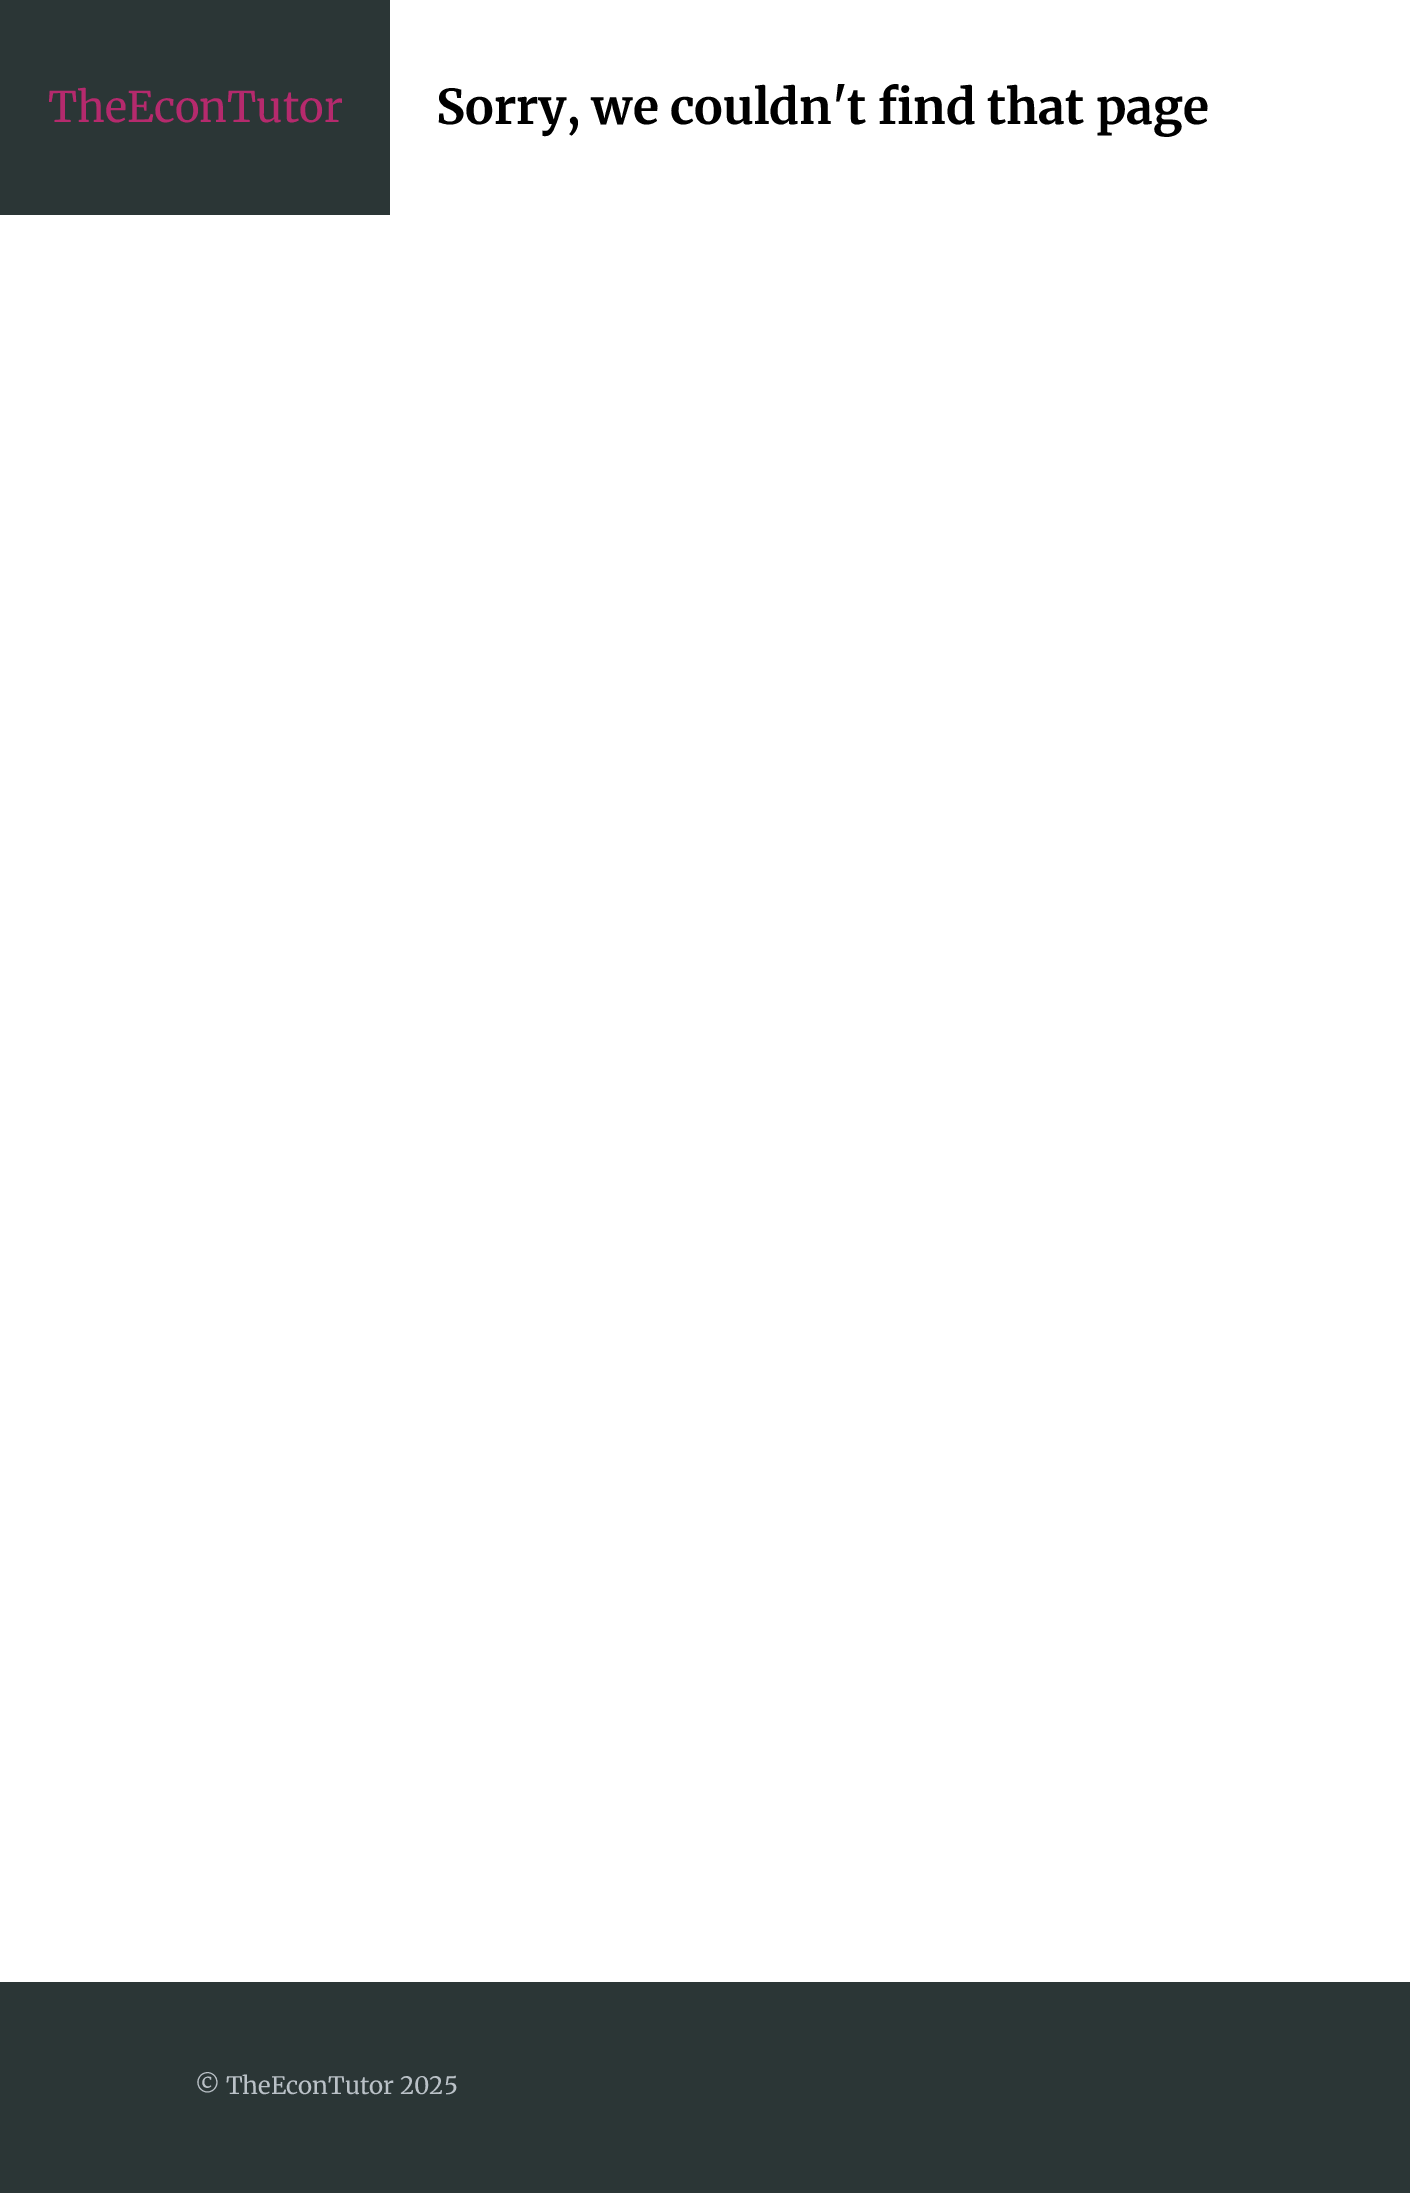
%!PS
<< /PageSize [1410 2193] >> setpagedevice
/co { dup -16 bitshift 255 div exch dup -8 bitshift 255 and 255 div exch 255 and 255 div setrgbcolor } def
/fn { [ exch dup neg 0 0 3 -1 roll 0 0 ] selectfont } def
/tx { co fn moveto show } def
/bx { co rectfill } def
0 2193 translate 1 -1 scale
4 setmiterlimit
0 0 1410 2193 16#FFFFFF bx
0 0 390 215 16#2B3636 bx
0 1982 1410 211 16#2B3636 bx
(TheEconTutor) 48 122 /Merriweather-Regular 42 16#B52A6D tx
(Sorry, we couldn't find that page) 436 124 /Merriweather-Bold 48 16#000000 tx
(© TheEconTutor 2025) 195 2094 /Merriweather-Regular 24 16#BAC1C7 tx
showpage
